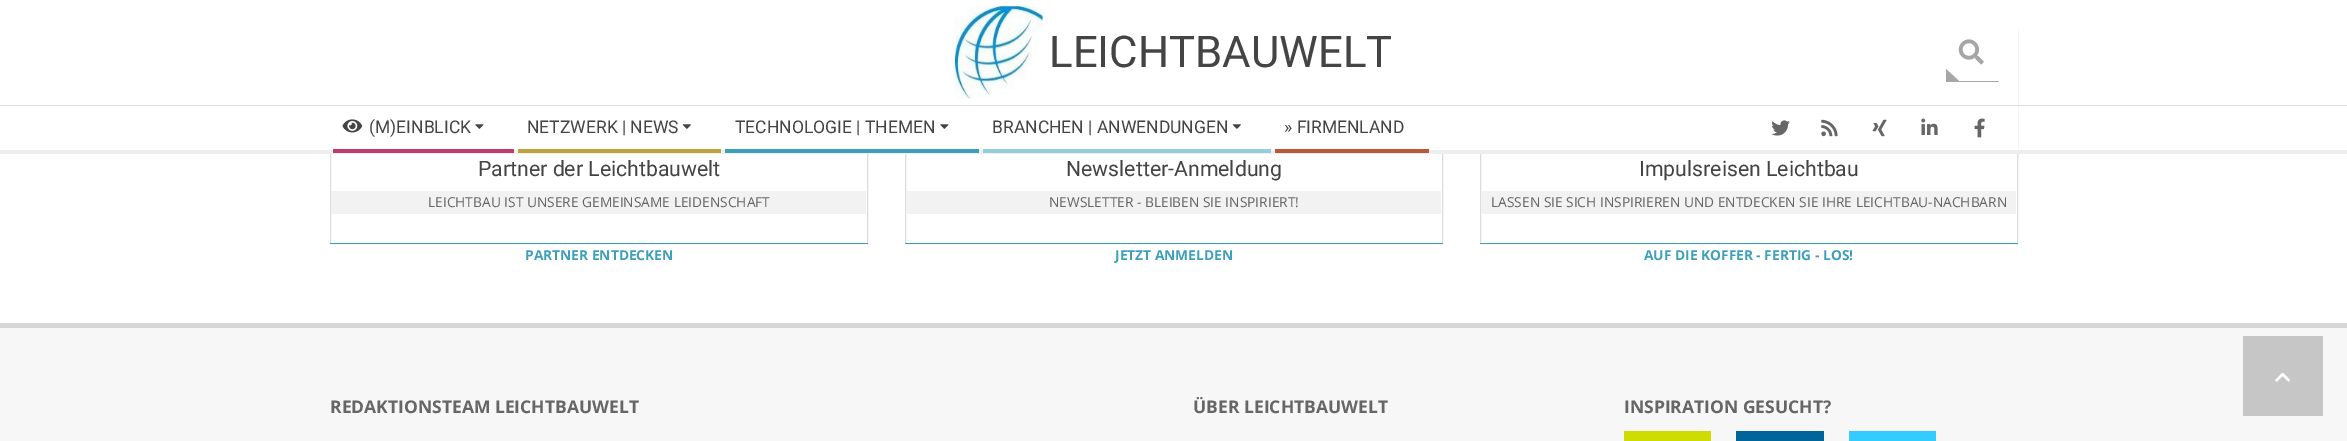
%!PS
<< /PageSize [2347 441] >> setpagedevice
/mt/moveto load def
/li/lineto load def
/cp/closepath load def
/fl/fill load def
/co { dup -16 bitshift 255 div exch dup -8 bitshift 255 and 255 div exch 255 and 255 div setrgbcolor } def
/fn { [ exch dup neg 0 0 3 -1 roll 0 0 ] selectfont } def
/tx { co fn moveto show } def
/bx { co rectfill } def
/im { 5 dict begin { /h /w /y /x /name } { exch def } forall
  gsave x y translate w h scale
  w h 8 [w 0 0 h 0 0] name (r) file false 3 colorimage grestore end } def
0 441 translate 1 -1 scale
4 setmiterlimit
0 0 2347 441 16#FFFFFF bx
16#DDDDDD co
330.5 30.5 537 213 rectstroke
905.5 30.5 537 213 rectstroke
1480.5 30.5 537 213 rectstroke
330 30 1688 120 16#FFFFFF bx
0 105 2347 1 16#DDDDDD bx
(media/1.raw) 955 6 88 93 im
1946 81 53 1 16#A6A6A6 bx
(media/2.raw) 1958 39 26 26 im
1946 81 mt 1946 69 li 1959 81 li cp fl
0 150 2347 4 16#EEEEEE bx
(media/3.raw) 342 119 21 14 im
(media/4.raw) 475 124 9 5 im
333 149 181 4 16#BC3C6C bx
(media/5.raw) 682 124 9 5 im
518 149 203 4 16#BCA43C bx
(media/4.raw) 940 124 9 5 im
725 149 254 4 16#3CA0BC bx
(media/5.raw) 1232 124 9 5 im
983 149 288 4 16#94CEDE bx
1275 149 154 4 16#BC573C bx
(media/6.raw) 1771 120 19 16 im
(media/7.raw) 1821 119 17 18 im
(media/8.raw) 1872 119 15 18 im
(media/9.raw) 1921 118 17 17 im
(media/10.raw) 1974 118 11 20 im
331 191 535 23 16#F2F2F2 bx
330 243 538 1 16#3CA0BC bx
906 191 535 23 16#F2F2F2 bx
905 243 538 1 16#3CA0BC bx
1481 191 535 23 16#F2F2F2 bx
1480 243 538 1 16#3CA0BC bx
0 328 2347 113 16#F7F7F7 bx
0 323 2347 5 16#D7D7D7 bx
1624 431 87 10 16#CFDC00 bx
1736 431 88 10 16#00659B bx
1849 431 87 10 16#32CCFE bx
2243 336 80 80 16#C6C6C6 bx
(media/11.raw) 2275 372 15 10 im
(LEICHTBAUWELT) 1049 67 /Roboto-Regular 43.75 16#444444 tx
(\(M\)EINBLICK) 369 133 /Roboto-Regular 17.5 16#444444 tx
(NETZWERK | NEWS) 527 133 /Roboto-Regular 17.5 16#444444 tx
(TECHNOLOGIE | THEMEN) 735 133 /Roboto-Regular 17.5 16#444444 tx
(BRANCHEN | ANWENDUNGEN) 992 133 /Roboto-Regular 17.5 16#444444 tx
(» FIRMENLAND) 1284 133 /Roboto-Regular 17.5 16#444444 tx
(Partner der Leichtbauwelt) 478 176 /Roboto-Regular 21.25 16#444444 tx
(LEICHTBAU IST UNSERE GEMEINSAME LEIDENSCHAFT) 428 207 /OpenSans-Regular 13.75 16#666666 tx
(PARTNER ENTDECKEN) 525 260 /OpenSans-Bold 13.75 16#3CA0BC tx
(Newsletter-Anmeldung) 1066 176 /Roboto-Regular 21.25 16#444444 tx
(NEWSLETTER - BLEIBEN SIE INSPIRIERT!) 1049 207 /OpenSans-Regular 13.75 16#666666 tx
(JETZT ANMELDEN) 1115 260 /OpenSans-Bold 13.75 16#3CA0BC tx
(Impulsreisen Leichtbau) 1639 176 /Roboto-Regular 21.25 16#444444 tx
(LASSEN SIE SICH INSPIRIEREN UND ENTDECKEN SIE IHRE LEICHTBAU-NACHBARN) 1491 207 /OpenSans-Regular 13.75 16#666666 tx
(AUF DIE KOFFER - FERTIG - LOS!) 1644 260 /OpenSans-Bold 13.75 16#3CA0BC tx
(REDAKTIONSTEAM LEICHTBAUWELT) 330 413 /OpenSans-Bold 17.5 16#666666 tx
(ÜBER LEICHTBAUWELT) 1193 413 /OpenSans-Bold 17.5 16#666666 tx
(INSPIRATION GESUCHT?) 1624 413 /OpenSans-Bold 17.5 16#666666 tx
showpage
